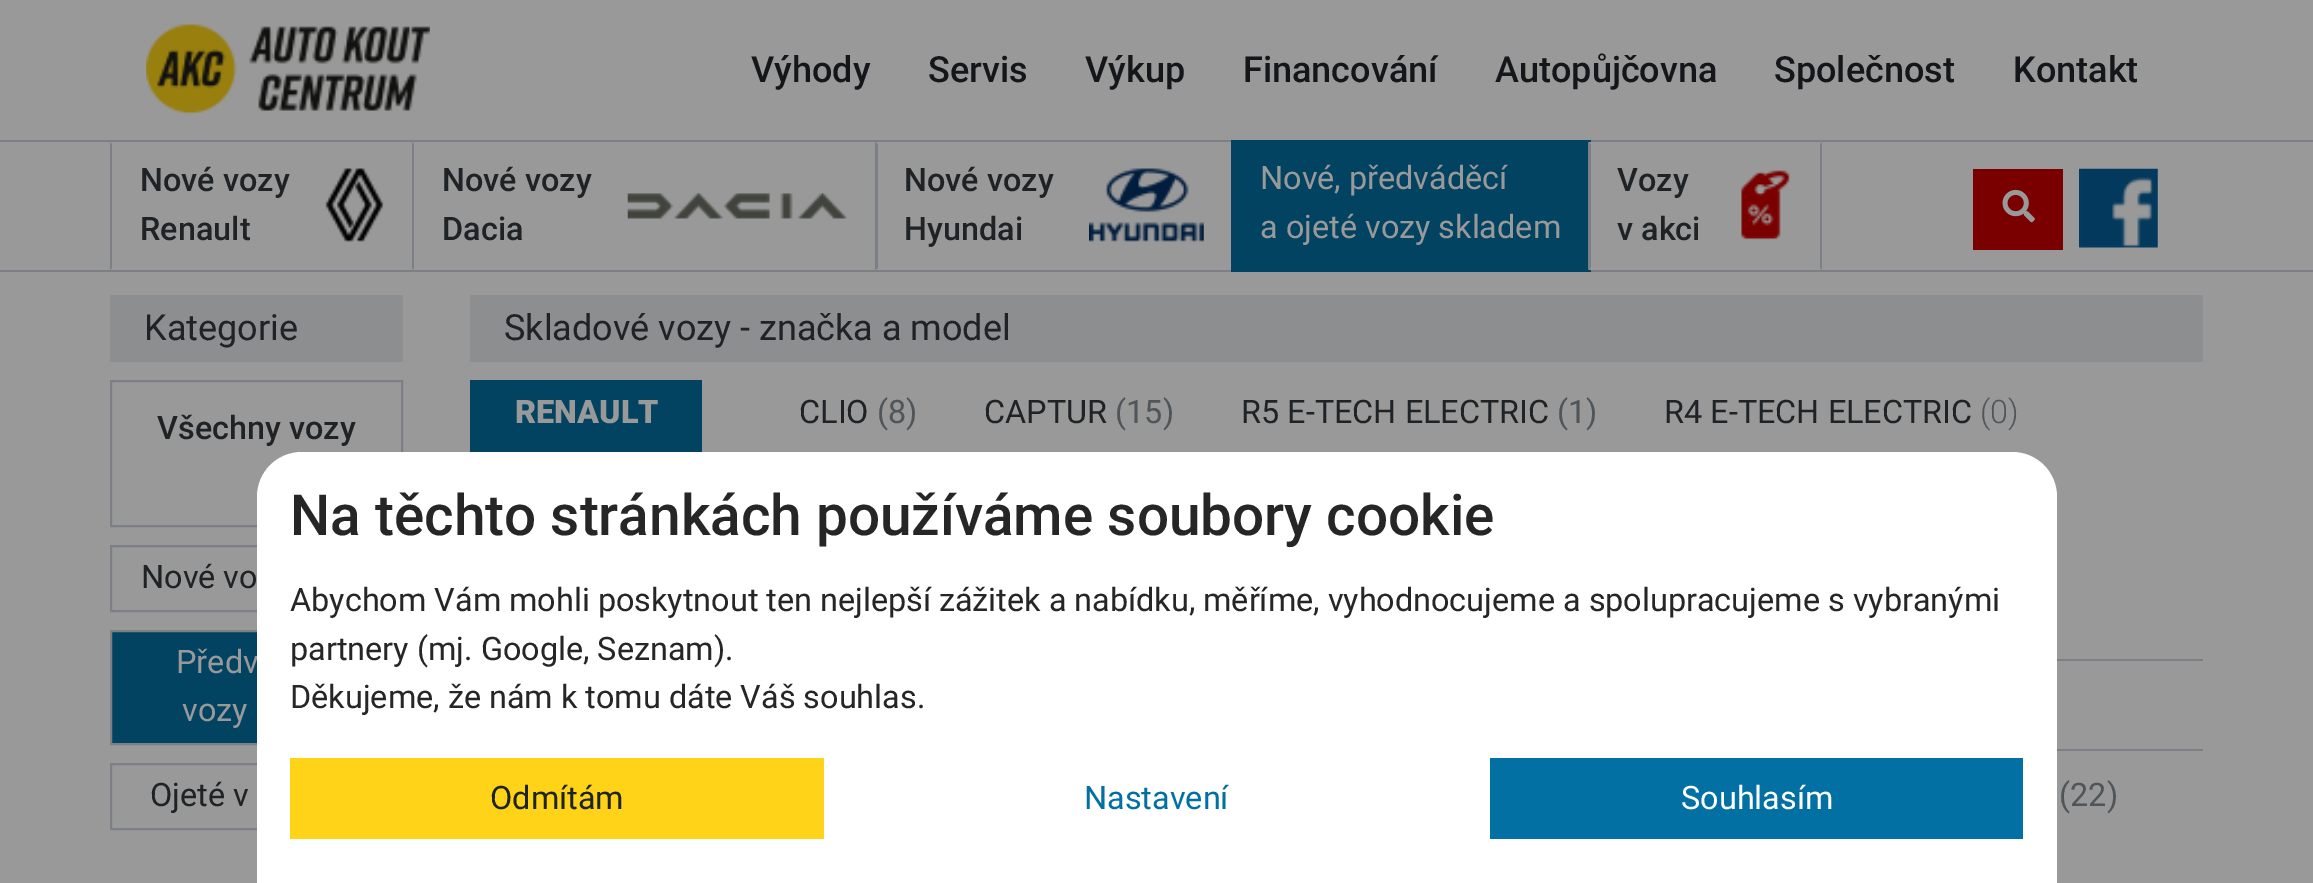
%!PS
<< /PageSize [2313 883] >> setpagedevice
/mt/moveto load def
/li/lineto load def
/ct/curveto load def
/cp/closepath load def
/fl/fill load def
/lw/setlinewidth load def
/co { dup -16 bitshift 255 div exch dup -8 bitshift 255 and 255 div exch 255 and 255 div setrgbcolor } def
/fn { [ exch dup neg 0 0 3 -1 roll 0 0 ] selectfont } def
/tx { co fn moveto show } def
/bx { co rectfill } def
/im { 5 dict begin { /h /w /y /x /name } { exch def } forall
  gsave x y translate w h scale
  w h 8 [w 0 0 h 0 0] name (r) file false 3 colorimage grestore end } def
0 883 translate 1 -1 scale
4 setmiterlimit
0 0 2313 883 16#999999 bx
0 140 2313 2 16#7C7F83 bx
(media/1.raw) 146 24 284 90 im
1973 169 90 81 16#7A0000 bx
(media/2.raw) 2002 189 33 34 im
(media/3.raw) 2079 168 79 80 im
0 270 2313 2 16#7C7F83 bx
110 270 mt 110 142 li 112 144 li 112 268 li cp fl
(media/4.raw) 325 168 59 74 im
412 270 mt 412 142 li 414 144 li 414 268 li cp fl
(media/5.raw) 627 193 220 26 im
875 270 mt 875 142 li 878 144 li 878 268 li cp fl
(media/6.raw) 1089 168 115 74 im
1231 140 360 132 16#024362 bx
1589 142 2 128 16#999999 bx
16#7C7F83 co
1822 142 mt 1822 270 li 1820 268 li 1820 144 li cp fl
1588 270 mt 1588 142 li 1591 144 li 1591 268 li cp fl
(media/7.raw) 1741 170 49 70 im
110 295 293 67 16#8C8E8F bx
16#7C7F83 co
2 lw
111 381 291 145 rectstroke
111 546 291 65 rectstroke
112 632 145 111 16#024362 bx
16#7C7F83 co
111 631 291 113 rectstroke
111 764 291 65 rectstroke
470 295 1733 67 16#8C8E8F bx
470 380 232 72 16#024362 bx
2057 659 146 2 16#7C7F83 bx
2057 749 146 2 16#7C7F83 bx
(Výhody) 751 82 /Roboto-Medium 36 16#141619 tx
(Servis) 928 82 /Roboto-Medium 36 16#141619 tx
(Výkup) 1085 82 /Roboto-Medium 36 16#141619 tx
(Financování) 1243 82 /Roboto-Medium 36 16#141619 tx
(Autopůjčovna) 1495 82 /Roboto-Medium 36 16#141619 tx
(Společnost) 1774 82 /Roboto-Medium 36 16#141619 tx
(Kontakt) 2013 82 /Roboto-Medium 36 16#141619 tx
(Nové vozy) 140 191 /Roboto-Medium 32.4 16#1F2326 tx
(Renault) 140 240 /Roboto-Medium 32.4 16#1F2326 tx
(Nové vozy) 442 191 /Roboto-Medium 32.4 16#1F2326 tx
(Dacia) 442 240 /Roboto-Medium 32.4 16#1F2326 tx
(Nové vozy) 904 191 /Roboto-Medium 32.4 16#1F2326 tx
(Hyundai) 904 240 /Roboto-Medium 32.4 16#1F2326 tx
(Nové, předváděcí) 1260 189 /Roboto-Regular 32.4 16#999999 tx
(a ojeté vozy skladem) 1260 238 /Roboto-Regular 32.4 16#999999 tx
(Vozy) 1617 191 /Roboto-Medium 32.4 16#1F2326 tx
(v akci) 1617 240 /Roboto-Medium 32.4 16#1F2326 tx
(Kategorie) 144 340 /Roboto-Regular 36 16#1F2326 tx
(Všechny vozy) 157 439 /Roboto-Medium 32.4 16#1F2326 tx
(Nové vo) 141 588 /Roboto-Regular 32.4 16#1F2326 tx
(Předv) 176 673 /Roboto-Regular 32.4 16#999999 tx
(vozy) 182 721 /Roboto-Regular 32.4 16#999999 tx
(Ojeté v) 150 806 /Roboto-Regular 32.4 16#1F2326 tx
(Skladové vozy - značka a model) 504 340 /Roboto-Regular 36 16#1F2326 tx
(RENAULT) 515 423 /Roboto-Black 32.4 16#999999 tx
(CLIO) 799 423 /Roboto-Regular 32.4 16#1F2326 tx
(\(8\)) 877 423 /Roboto-Regular 32.4 16#50555A tx
(CAPTUR) 984 423 /Roboto-Regular 32.4 16#1F2326 tx
(\(15\)) 1115 423 /Roboto-Regular 32.4 16#50555A tx
(R5 E-TECH ELECTRIC) 1241 423 /Roboto-Regular 32.4 16#1F2326 tx
(\(1\)) 1557 423 /Roboto-Regular 32.4 16#50555A tx
(R4 E-TECH ELECTRIC) 1664 423 /Roboto-Regular 32.4 16#1F2326 tx
(\(0\)) 1980 423 /Roboto-Light 32.4 16#50555A tx
(\(22\)) 2059 806 /Roboto-Regular 32.4 16#50555A tx
16#FFFFFF co
302 452 mt 2012 452 li 2037 452 2057 472 2057 497 ct 2057 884 li 257 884 li 257 497 li 257 472 277 452 302 452 ct cp fl
(Na těchto stránkách používáme soubory cookie) 290 535 /Roboto-Medium 56.7 16#262626 tx
(Abychom Vám mohli poskytnout ten nejlepší zážitek a nabídku, měříme, vyhodnocujeme a spolupracujeme s vybranými) 290 611 /Roboto-Regular 32.4 16#262626 tx
(partnery \(mj. Google, Seznam\).) 290 660 /Roboto-Regular 32.4 16#262626 tx
(Děkujeme, že nám k tomu dáte Váš souhlas.) 290 708 /Roboto-Regular 32.4 16#262626 tx
290 758 534 81 16#FED318 bx
(Odmítám) 490 809 /Roboto-Regular 32.4 16#1F2326 tx
(Nastavení) 1084 809 /Roboto-Regular 32.4 16#0370A4 tx
1490 758 533 81 16#0370A4 bx
(Souhlasím) 1681 809 /Roboto-Regular 32.4 16#FFFFFF tx
showpage
